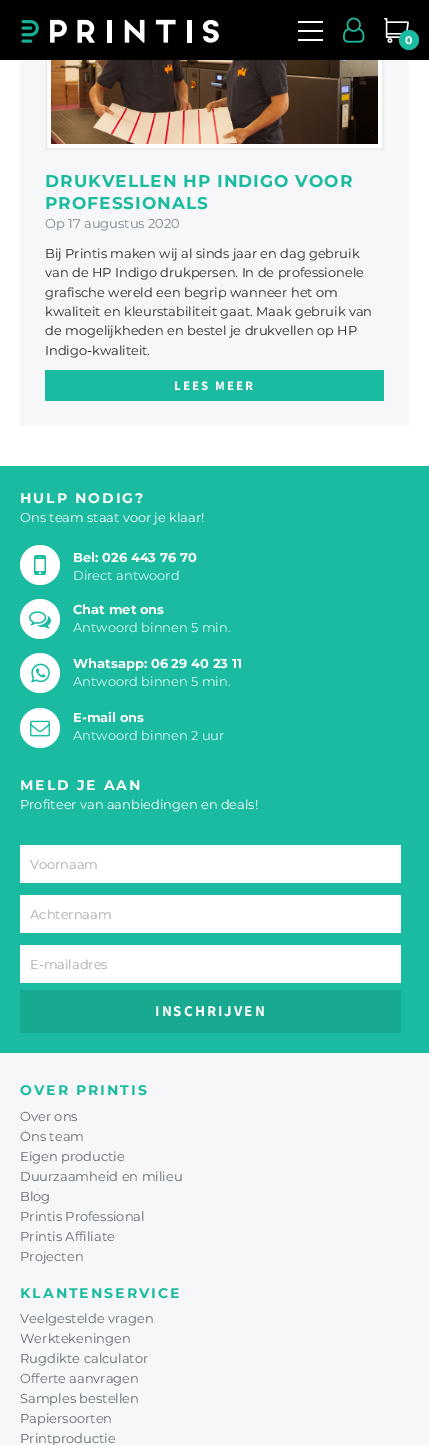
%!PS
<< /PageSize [429 1445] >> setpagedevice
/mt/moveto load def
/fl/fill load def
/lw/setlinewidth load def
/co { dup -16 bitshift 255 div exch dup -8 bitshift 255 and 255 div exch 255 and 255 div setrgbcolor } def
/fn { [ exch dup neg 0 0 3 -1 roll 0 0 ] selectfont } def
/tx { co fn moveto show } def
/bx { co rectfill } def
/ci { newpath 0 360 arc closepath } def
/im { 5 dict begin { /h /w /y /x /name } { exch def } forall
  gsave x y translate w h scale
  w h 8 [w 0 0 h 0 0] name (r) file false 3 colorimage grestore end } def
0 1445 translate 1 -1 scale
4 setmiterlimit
0 0 429 1445 16#FFFFFF bx
20 60 389 366 16#F7F7F9 bx
47 60 335 88 16#FFFFFF bx
16#ECEEEF co
2 lw
46 -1 337 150 rectstroke
0 0 429 60 16#000000 bx
(media/1.raw) 21 19 198 24 im
298 30 25 2 16#FFFFFF bx
298 21 25 2 16#FFFFFF bx
298 39 25 2 16#FFFFFF bx
(media/2.raw) 343 17 22 26 im
(media/3.raw) 384 18 25 25 im
16#1ABBA0 co
409 40 10 ci fl
(media/4.raw) 51 60 327 84 im
45 370 339 31 16#1ABBA0 bx
0 466 429 587 16#1ABBA0 bx
16#FFFFFF co
40 565 20 ci fl
(media/5.raw) 34 555 12 20 im
40 619 20 ci fl
(media/6.raw) 29 611 22 18 im
40 673 20 ci fl
(media/7.raw) 31 663 19 20 im
40 728 20 ci fl
(media/8.raw) 30 720 20 17 im
20 845 381 38 16#FFFFFF bx
20 895 381 38 16#FFFFFF bx
20 945 381 38 16#FFFFFF bx
20 990 381 43 16#18A991 bx
0 1053 429 392 16#F7F7F9 bx
(0) 405 44 /Montserrat-Bold 11 16#FFFFFF tx
/Montserrat-Bold 17 fn
16#1ABBA0 co
45 187 mt 1 0 (DRUKVELLEN HP INDIGO VOOR) ashow
45 209 mt 1 0 (PROFESSIONALS) ashow
(Op 17 augustus 2020) 45 228 /Montserrat-Regular 13 16#7B868D tx
(Bij Printis maken wij al sinds jaar en dag gebruik) 45 258 /Montserrat-Regular 12.95 16#292B2C tx
(van de HP Indigo drukpersen. In de professionele) 45 277 /Montserrat-Regular 12.95 16#292B2C tx
(grafische wereld een begrip wanneer het om) 45 297 /Montserrat-Regular 12.95 16#292B2C tx
(kwaliteit en kleurstabiliteit gaat. Maak gebruik van) 45 316 /Montserrat-Regular 12.95 16#292B2C tx
(de mogelijkheden en bestel je drukvellen op HP) 45 335 /Montserrat-Regular 12.95 16#292B2C tx
(Indigo-kwaliteit.) 45 355 /Montserrat-Regular 12.95 16#292B2C tx
/SourceSansPro-Bold 12.95 fn
16#FFFFFF co
174 390 mt 2 0 (LEES MEER) ashow
/Montserrat-Bold 14 fn
20 503 mt 2 0 (HULP NODIG?) ashow
(Ons team staat voor je klaar!) 20 522 /Montserrat-Regular 12.95 16#FFFFFF tx
(Bel: 026 443 76 70) 73 562 /Montserrat-Bold 13 16#FFFFFF tx
(Direct antwoord) 73 580 /Montserrat-Regular 12.95 16#DAFAF5 tx
(Chat met ons) 73 614 /Montserrat-Bold 13 16#FFFFFF tx
(Antwoord binnen 5 min.) 73 632 /Montserrat-Regular 12.95 16#DAFAF5 tx
(Whatsapp: 06 29 40 23 11) 73 668 /Montserrat-Bold 13 16#FFFFFF tx
(Antwoord binnen 5 min.) 73 686 /Montserrat-Regular 12.95 16#DAFAF5 tx
(E-mail ons) 73 722 /Montserrat-Bold 13 16#FFFFFF tx
(Antwoord binnen 2 uur) 73 740 /Montserrat-Regular 12.95 16#DAFAF5 tx
/Montserrat-Bold 14 fn
16#FFFFFF co
20 790 mt 2 0 (MELD JE AAN) ashow
(Profiteer van aanbiedingen en deals!) 20 809 /Montserrat-Regular 12.95 16#FFFFFF tx
(Voornaam) 30 869 /Montserrat-Regular 12.95 16#A4ABB0 tx
(Achternaam) 30 919 /Montserrat-Regular 12.95 16#A4ABB0 tx
(E-mailadres) 30 969 /Montserrat-Regular 12.95 16#A4ABB0 tx
/SourceSansPro-Bold 15 fn
16#FFFFFF co
155 1016 mt 2 0 (INSCHRIJVEN) ashow
/Montserrat-Bold 14 fn
16#1ABBA0 co
20 1095 mt 2 0 (OVER PRINTIS) ashow
(Over ons) 20 1121 /Montserrat-Regular 13 16#636C72 tx
(Ons team) 20 1141 /Montserrat-Regular 13 16#636C72 tx
(Eigen productie) 20 1161 /Montserrat-Regular 13 16#636C72 tx
(Duurzaamheid en milieu) 20 1181 /Montserrat-Regular 13 16#636C72 tx
(Blog) 20 1201 /Montserrat-Regular 13 16#636C72 tx
(Printis Professional) 20 1221 /Montserrat-Regular 13 16#636C72 tx
(Printis Affiliate) 20 1241 /Montserrat-Regular 13 16#636C72 tx
(Projecten) 20 1261 /Montserrat-Regular 13 16#636C72 tx
/Montserrat-Bold 14 fn
16#1ABBA0 co
20 1298 mt 2 0 (KLANTENSERVICE) ashow
(Veelgestelde vragen) 20 1323 /Montserrat-Regular 13 16#636C72 tx
(Werktekeningen) 20 1343 /Montserrat-Regular 13 16#636C72 tx
(Rugdikte calculator) 20 1363 /Montserrat-Regular 13 16#636C72 tx
(Offerte aanvragen) 20 1383 /Montserrat-Regular 13 16#636C72 tx
(Samples bestellen) 20 1403 /Montserrat-Regular 13 16#636C72 tx
(Papiersoorten) 20 1423 /Montserrat-Regular 13 16#636C72 tx
(Printproductie) 20 1443 /Montserrat-Regular 13 16#636C72 tx
showpage
